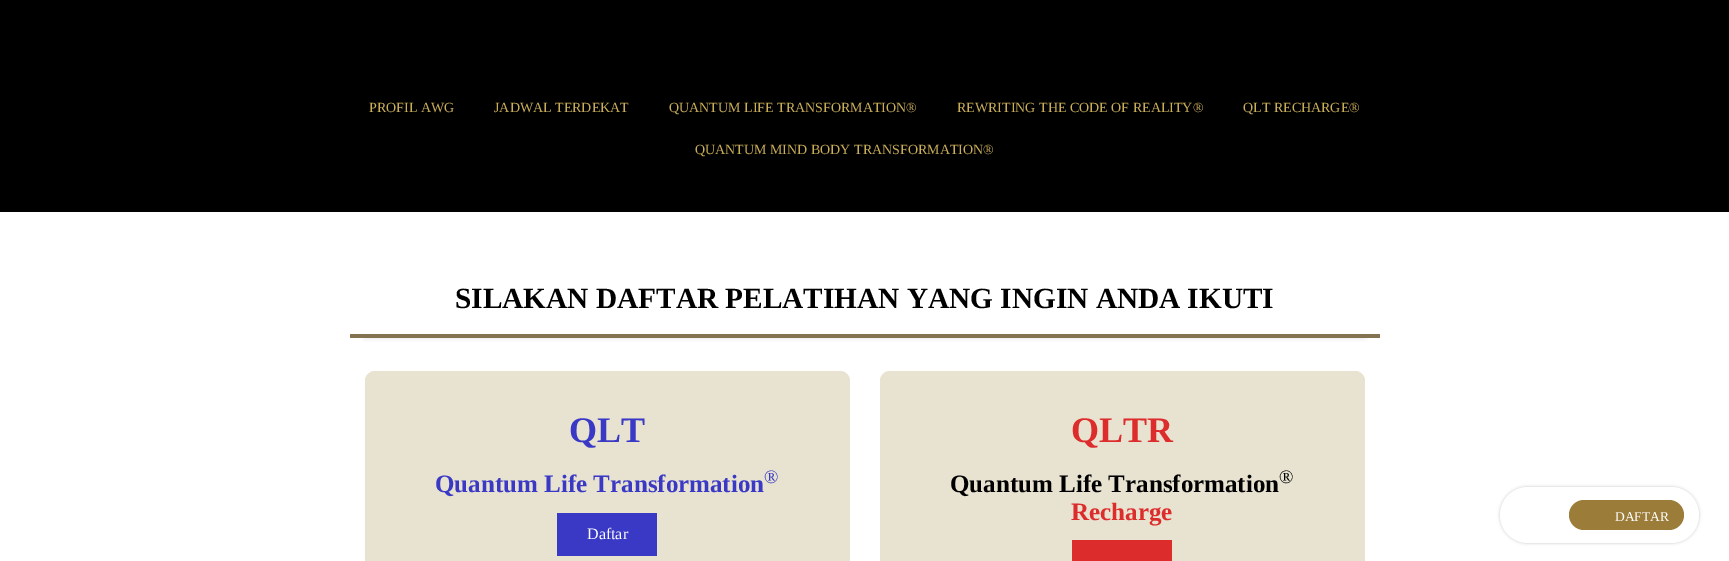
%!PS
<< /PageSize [1729 561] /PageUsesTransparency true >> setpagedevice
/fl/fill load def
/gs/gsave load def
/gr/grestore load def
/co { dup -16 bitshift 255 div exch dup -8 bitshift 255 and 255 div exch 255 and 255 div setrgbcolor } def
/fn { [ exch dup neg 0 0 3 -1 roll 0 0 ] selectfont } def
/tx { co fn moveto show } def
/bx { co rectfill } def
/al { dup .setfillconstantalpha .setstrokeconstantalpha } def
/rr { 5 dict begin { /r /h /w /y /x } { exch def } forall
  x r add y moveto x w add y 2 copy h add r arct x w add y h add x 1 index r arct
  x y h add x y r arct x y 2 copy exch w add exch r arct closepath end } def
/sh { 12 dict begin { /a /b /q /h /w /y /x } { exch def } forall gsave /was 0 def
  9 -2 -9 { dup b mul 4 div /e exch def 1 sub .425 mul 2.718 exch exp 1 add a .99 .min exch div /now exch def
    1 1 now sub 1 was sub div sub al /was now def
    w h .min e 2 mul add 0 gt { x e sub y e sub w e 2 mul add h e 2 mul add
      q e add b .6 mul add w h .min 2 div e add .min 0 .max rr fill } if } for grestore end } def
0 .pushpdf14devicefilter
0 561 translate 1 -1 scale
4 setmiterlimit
0 0 1729 561 16#FFFFFF bx
0 0 1729 212 16#000000 bx
gs
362 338 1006 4 rectclip
16#999999 co
366 310 998 24 0 4 1 sh
gr
350 334 1030 4 16#847350 bx
16#E8E3D0 co
365 371 485 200 10 rr fl
557 513 100 43 16#3939C5 bx
16#E8E3D0 co
880 371 485 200 10 rr fl
1072 540 100 21 16#DD2C2C bx
16#000000 co
1500 487 199 56 28 1.5 .2 sh
16#FFFFFF co
1500 487 199 56 28 rr fl
16#9B7C39 co
1569 500 115 30 15 rr fl
(PROFIL AWG) 369 112 /LiberationSerif-Regular 14 16#CAAE58 tx
(JADWAL TERDEKAT) 494 112 /LiberationSerif-Regular 14 16#CAAE58 tx
(QUANTUM LIFE TRANSFORMATION®) 669 112 /LiberationSerif-Regular 14 16#CAAE58 tx
(REWRITING THE CODE OF REALITY®) 957 112 /LiberationSerif-Regular 14 16#CAAE58 tx
(QLT RECHARGE®) 1243 112 /LiberationSerif-Regular 14 16#CAAE58 tx
(QUANTUM MIND BODY TRANSFORMATION®) 695 154 /LiberationSerif-Regular 14 16#CAAE58 tx
(SILAKAN DAFTAR PELATIHAN YANG INGIN ANDA IKUTI) 455 308 /LiberationSerif-Bold 29.3 16#000000 tx
(QLT) 569 442 /LiberationSerif-Bold 36 16#3939C5 tx
(Quantum Life Transformation) 435 492 /LiberationSerif-Bold 25 16#3939C5 tx
(®) 764 483 /LiberationSerif-Regular 19 16#3939C5 tx
(Daftar) 587 539 /LiberationSerif-Regular 16 16#FFFFFF tx
(QLTR) 1071 442 /LiberationSerif-Bold 36 16#DD2C2C tx
(Quantum Life Transformation) 950 492 /LiberationSerif-Bold 25 16#000000 tx
(®) 1279 483 /LiberationSerif-Regular 19 16#000000 tx
(Recharge) 1071 520 /LiberationSerif-Bold 25 16#DD2C2C tx
(DAFTAR) 1615 521 /LiberationSerif-Regular 13.5 16#FFFFFF tx
.poppdf14devicefilter showpage
